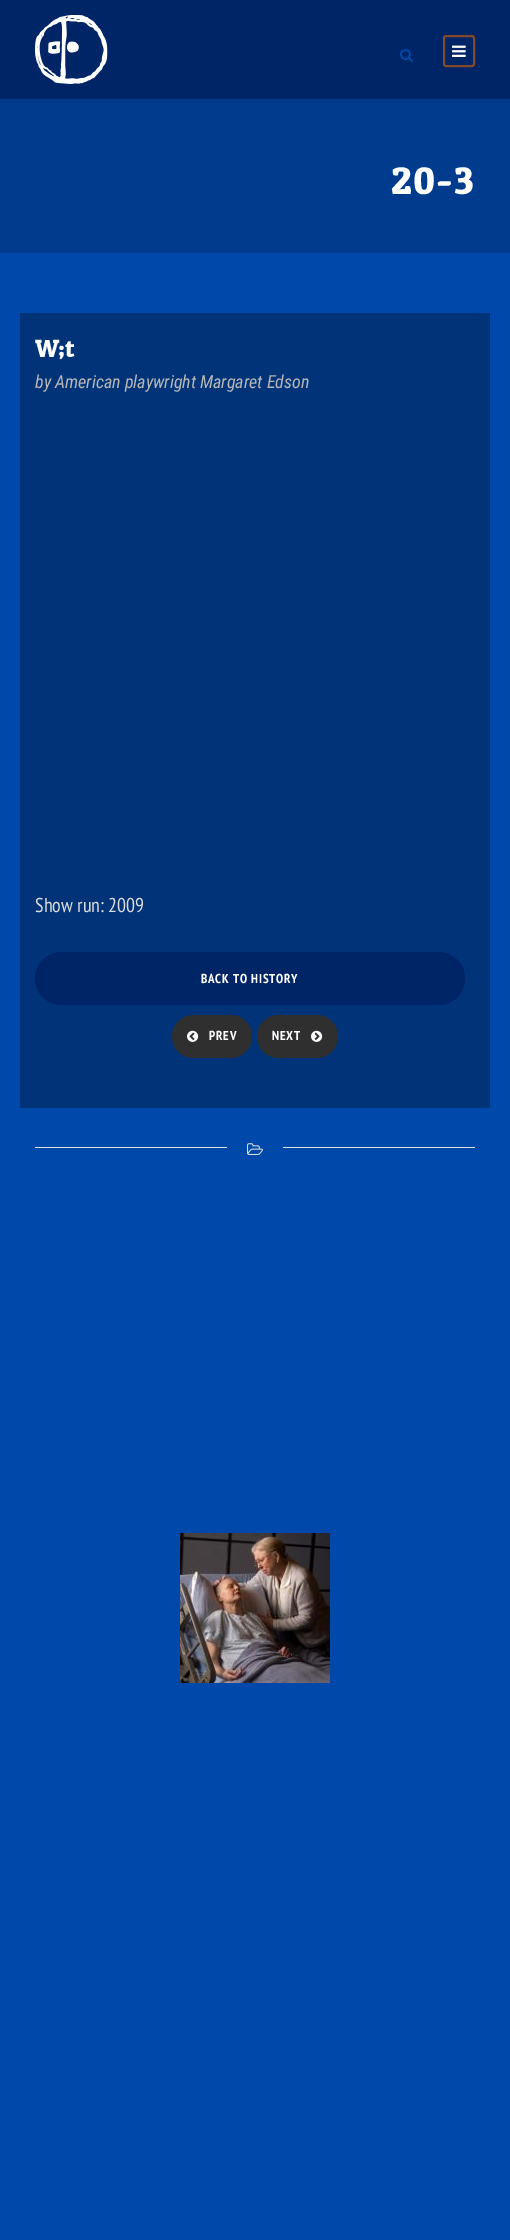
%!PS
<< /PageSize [510 2240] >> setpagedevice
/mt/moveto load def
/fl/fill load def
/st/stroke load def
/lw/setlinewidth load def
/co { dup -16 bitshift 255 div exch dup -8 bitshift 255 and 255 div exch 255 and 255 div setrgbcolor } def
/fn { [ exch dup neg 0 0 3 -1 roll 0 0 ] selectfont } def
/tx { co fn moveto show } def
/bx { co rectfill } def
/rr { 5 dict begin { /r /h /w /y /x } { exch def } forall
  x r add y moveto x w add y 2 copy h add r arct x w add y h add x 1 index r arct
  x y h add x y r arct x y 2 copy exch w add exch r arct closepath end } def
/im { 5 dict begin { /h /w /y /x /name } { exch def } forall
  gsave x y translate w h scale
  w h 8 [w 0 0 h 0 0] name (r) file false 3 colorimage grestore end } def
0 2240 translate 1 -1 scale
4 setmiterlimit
0 0 510 2240 16#002566 bx
(media/1.raw) 35 15 73 69 im
(media/2.raw) 400 49 13 13 im
16#824A29 co
2 lw
444 36 30 30 2 rr st
(media/3.raw) 452 45 14 12 im
0 253 510 1987 16#0049AB bx
0 99 510 154 16#003B8D bx
20 313 470 795 16#003378 bx
16#002566 co
35 952 430 53 26.5 rr fl
16#2F2F2F co
172 1015 80 43 21.5 rr fl
(media/4.raw) 187 1030 12 12 im
257 1015 81 43 21.5 rr fl
(media/5.raw) 311 1030 12 12 im
35 1147 192 1 16#E2E2E2 bx
(media/6.raw) 247 1143 16 12 im
283 1147 192 1 16#E2E2E2 bx
(media/7.raw) 180 1533 150 150 im
/PatuaOne-Bold 37 fn
16#FFFFFF co
391 194 mt 2 0 (20-3) ashow
(W;t) 35 357 /PatuaOne-Bold 24 16#FFFFFF tx
(by American playwright Margaret Edson) 35 388 /RobotoCondensed-Italic 18 16#B7B7B7 tx
(Show run: 2009) 35 912 /PTSansNarrow-Regular 20 16#DBDBDB tx
/PTSansNarrow-Bold 13 fn
16#FFFFFF co
201 983 mt .75 0 (BACK TO HISTORY) ashow
209 1040 mt .75 0 (PREV) ashow
272 1040 mt .75 0 (NEXT) ashow
showpage
